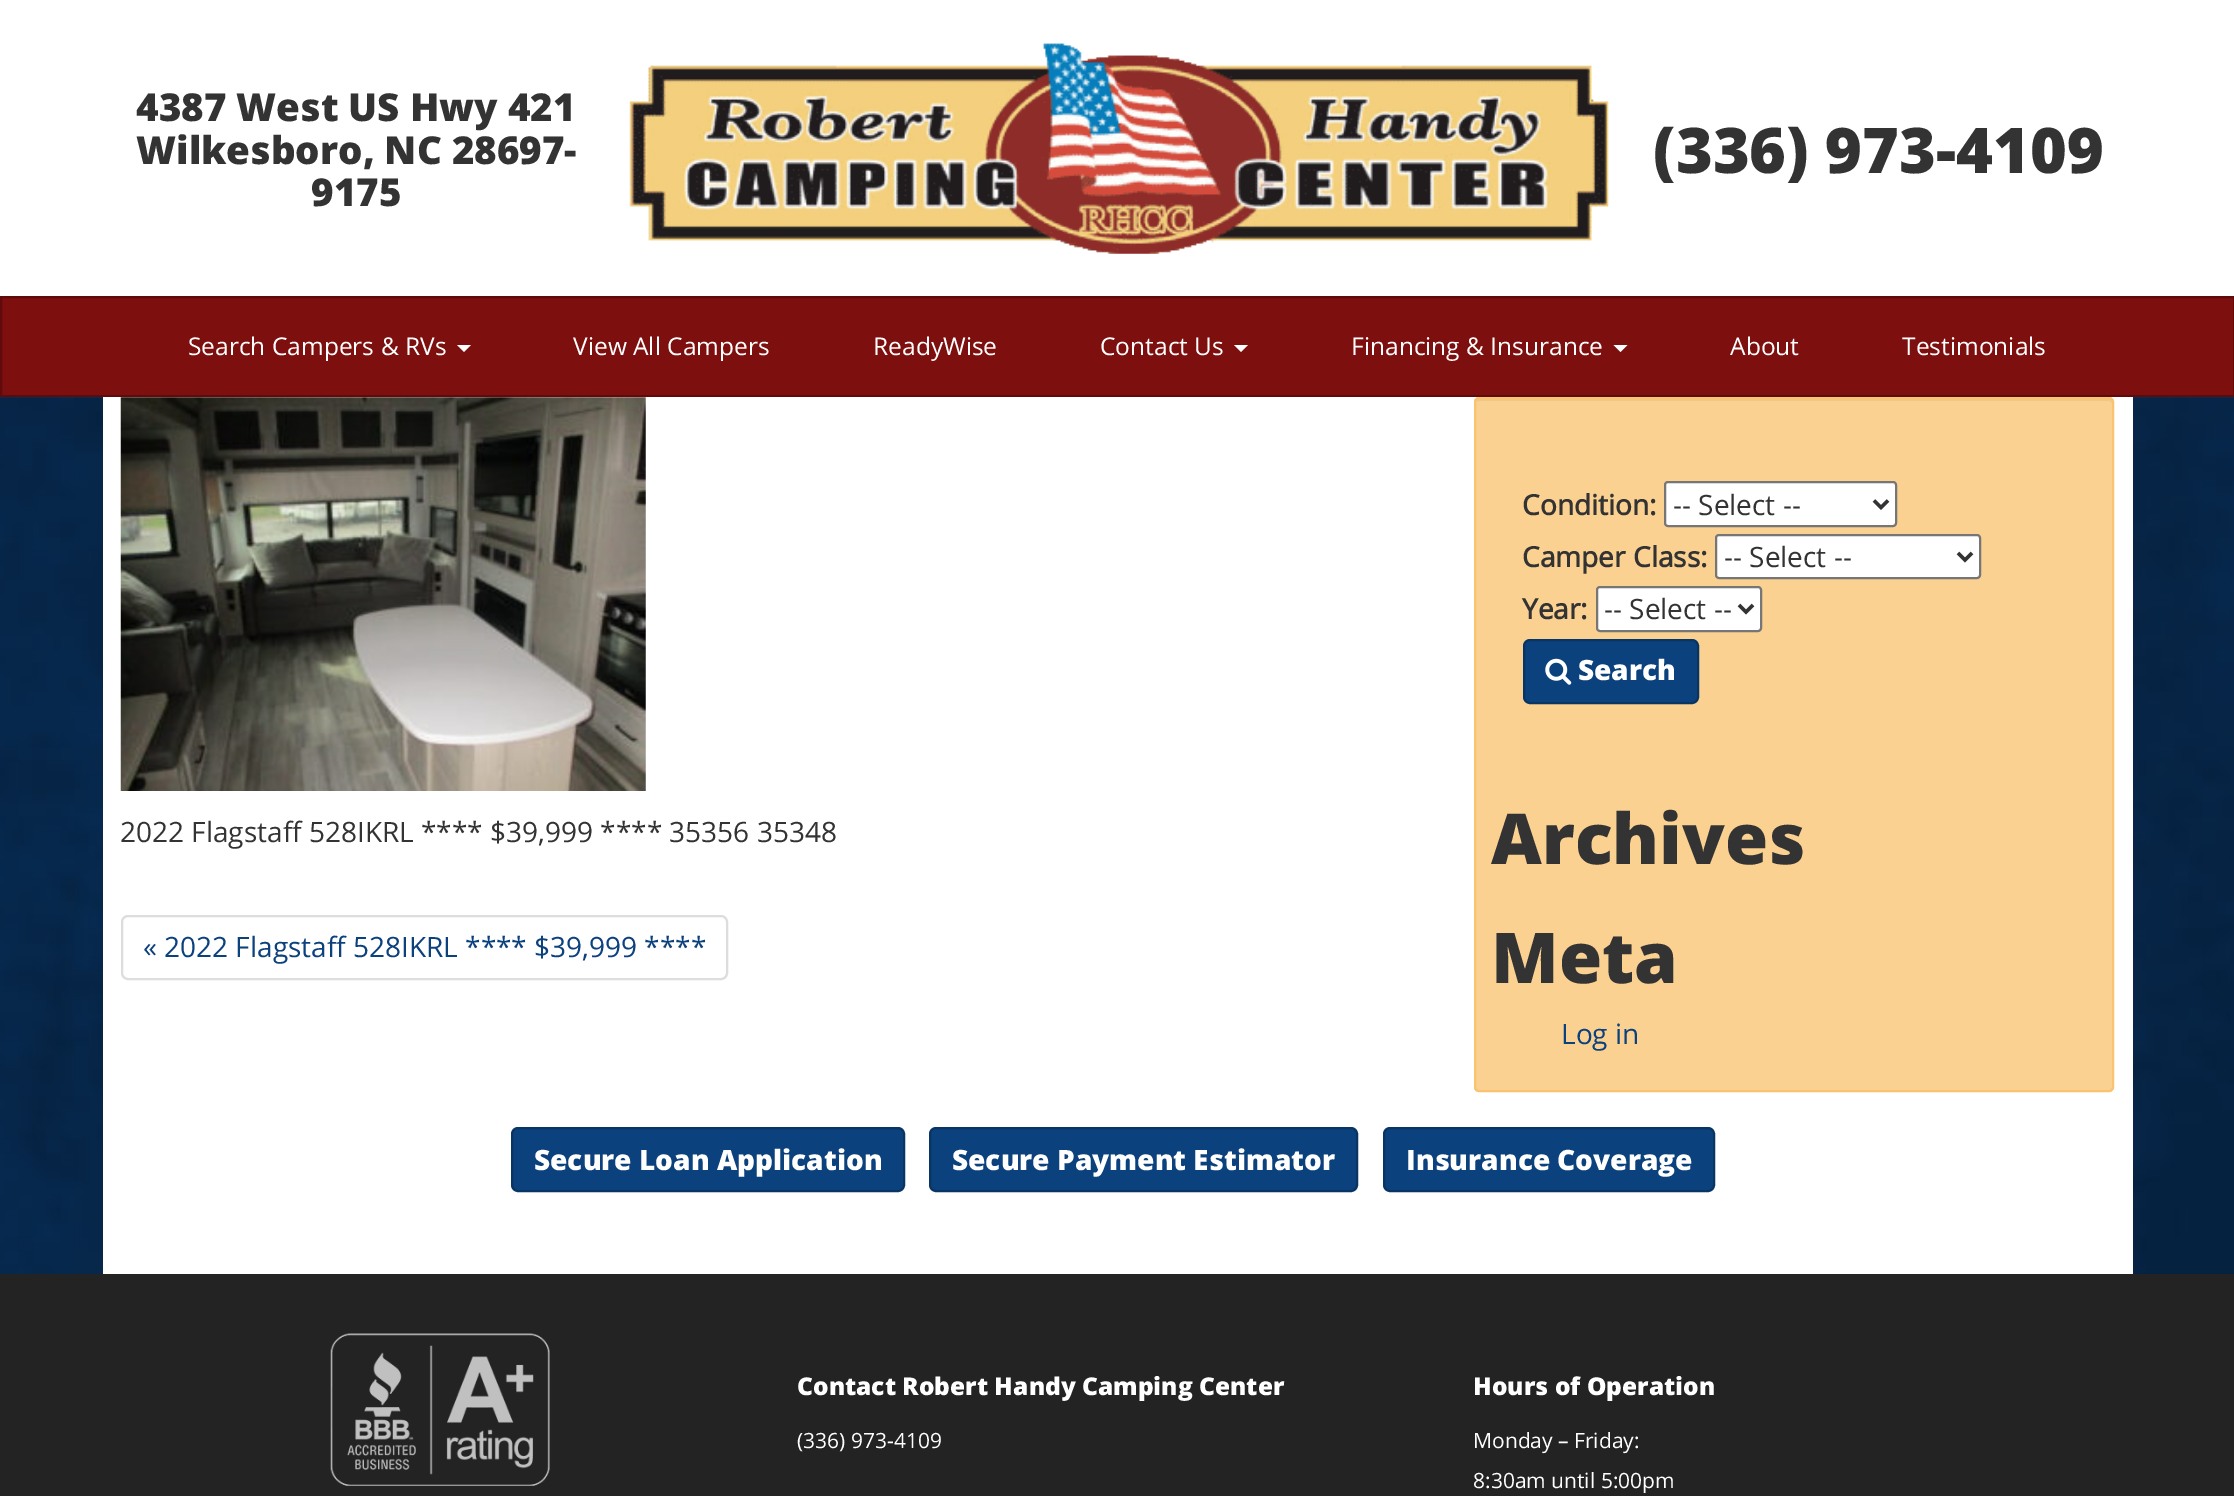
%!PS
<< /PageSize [2234 1496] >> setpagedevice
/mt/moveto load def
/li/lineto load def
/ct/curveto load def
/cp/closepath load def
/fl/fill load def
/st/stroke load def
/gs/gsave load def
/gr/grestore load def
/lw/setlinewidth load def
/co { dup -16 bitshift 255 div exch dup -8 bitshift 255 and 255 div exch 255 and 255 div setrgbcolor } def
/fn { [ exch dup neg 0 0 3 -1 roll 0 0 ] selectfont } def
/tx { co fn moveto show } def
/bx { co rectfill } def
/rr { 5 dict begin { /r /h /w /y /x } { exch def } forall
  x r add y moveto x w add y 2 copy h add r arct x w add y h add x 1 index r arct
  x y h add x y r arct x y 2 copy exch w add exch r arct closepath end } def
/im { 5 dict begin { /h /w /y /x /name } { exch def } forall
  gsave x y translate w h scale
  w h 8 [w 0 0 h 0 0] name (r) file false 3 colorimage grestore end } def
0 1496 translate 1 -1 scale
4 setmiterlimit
0 0 2234 1496 16#FFFFFF bx
(media/1.raw) 629 43 980 211 im
16#7E0F0F co
1 297 mt 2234 297 li 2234 396 li 1 396 li cp gs fl gr
16#600B0B co
2 lw
st
16#FFFFFF co
457 345 mt 471 345 li 464 352 li cp fl
1234 345 mt 1248 345 li 1241 352 li cp fl
1613.5 345 mt 1627.5 345 li 1620.5 352 li cp fl
(media/2.raw) 0 397 2234 877 im
103 397 2030 877 16#FFFFFF bx
(media/3.raw) 120 397 526 394 im
16#DDDDDD co
122 916 605 63 6 rr st
16#FBD191 co
1474 397 640 695 5 rr fl
16#EEC78A co
1479 401 mt 2109 401 li 2111 401 2112 402 2112 404 ct 2112 401 2111 399 2108 399 ct 1479 399 li 1476 399 1475 401 1475 404 ct 1475 402 1477 401 1479 401 ct cp fl
16#FAC36F co
1475 398 638 693 4 rr st
16#FFFFFF co
1665 482 231 44 3 rr gs fl gr
16#767676 co
st
16#333333 co
3.5 lw
1874 500.5 mt 1881 507.5 li 1888 500.5 li st
16#FFFFFF co
1716 535 264 43 3 rr gs fl gr
16#767676 co
2 lw
st
16#333333 co
3.5 lw
1958 553 mt 1965 560 li 1972 553 li st
16#FFFFFF co
1597 587 164 44 3 rr gs fl gr
16#767676 co
2 lw
st
16#333333 co
3.5 lw
1739 605 mt 1746 612 li 1753 605 li st
16#0B417C co
1524 640 174 63 6 rr gs fl gr
16#093565 co
2 lw
st
(media/4.raw) 1545 658 27 27 im
16#0B417C co
512 1128 392 63 6 rr gs fl gr
16#093565 co
st
16#0B417C co
930 1128 427 63 6 rr gs fl gr
16#093565 co
st
16#0B417C co
1384 1128 330 63 6 rr gs fl gr
16#093565 co
st
0 1274 2234 222 16#232323 bx
(media/5.raw) 330 1333 220 153 im
(4387 West US Hwy 421) 136 121 /OpenSans-ExtraBold 38.5 16#333333 tx
(Wilkesboro, NC 28697-) 136 164 /OpenSans-ExtraBold 38.5 16#333333 tx
(9175) 311 206 /OpenSans-ExtraBold 38.5 16#333333 tx
(\(336\) 973-4109) 1653 173 /OpenSans-ExtraBold 63 16#333333 tx
(Search Campers & RVs) 188 355 /OpenSans-Regular 24.5 16#FFFFFF tx
(View All Campers) 573 355 /OpenSans-Regular 24.5 16#FFFFFF tx
(ReadyWise) 873 355 /OpenSans-Regular 24.5 16#FFFFFF tx
(Contact Us) 1100 355 /OpenSans-Regular 24.5 16#FFFFFF tx
(Financing & Insurance) 1351 355 /OpenSans-Regular 24.5 16#FFFFFF tx
(About) 1730 355 /OpenSans-Regular 24.5 16#FFFFFF tx
(Testimonials) 1902 355 /OpenSans-Regular 24.5 16#FFFFFF tx
(2022 Flagstaff 528IKRL **** $39,999 **** 35356 35348) 120 842 /OpenSans-Regular 28 16#333333 tx
(« 2022 Flagstaff 528IKRL **** $39,999 ****) 143 957 /OpenSans-Regular 28 16#0B417C tx
(Condition:) 1522 515 /OpenSans-Bold 28 16#333333 tx
(-- Select --) 1673 515 /OpenSans-Regular 28 16#333333 tx
(Camper Class:) 1522 567 /OpenSans-Bold 28 16#333333 tx
(-- Select --) 1724 567 /OpenSans-Regular 28 16#333333 tx
(Year:) 1522 619 /OpenSans-Bold 28 16#333333 tx
(-- Select --) 1604 619 /OpenSans-Regular 28 16#333333 tx
(Search) 1578 680 /OpenSans-ExtraBold 28 16#FFFFFF tx
(Archives) 1491 864 /OpenSans-ExtraBold 70 16#333333 tx
(Meta) 1491 983 /OpenSans-ExtraBold 70 16#333333 tx
(Log in) 1561 1044 /OpenSans-Regular 28 16#0B417C tx
(Secure Loan Application) 534 1170 /OpenSans-ExtraBold 28 16#FFFFFF tx
(Secure Payment Estimator) 952 1170 /OpenSans-ExtraBold 28 16#FFFFFF tx
(Insurance Coverage) 1406 1170 /OpenSans-ExtraBold 28 16#FFFFFF tx
(Contact Robert Handy Camping Center) 797 1395 /OpenSans-ExtraBold 24.5 16#FFFFFF tx
(\(336\) 973-4109) 797 1448 /OpenSans-Regular 21 16#FFFFFF tx
(Hours of Operation) 1473 1395 /OpenSans-ExtraBold 24.5 16#FFFFFF tx
(Monday – Friday:) 1473 1448 /OpenSans-Regular 21 16#FFFFFF tx
(8:30am until 5:00pm) 1473 1488 /OpenSans-Regular 21 16#FFFFFF tx
showpage
